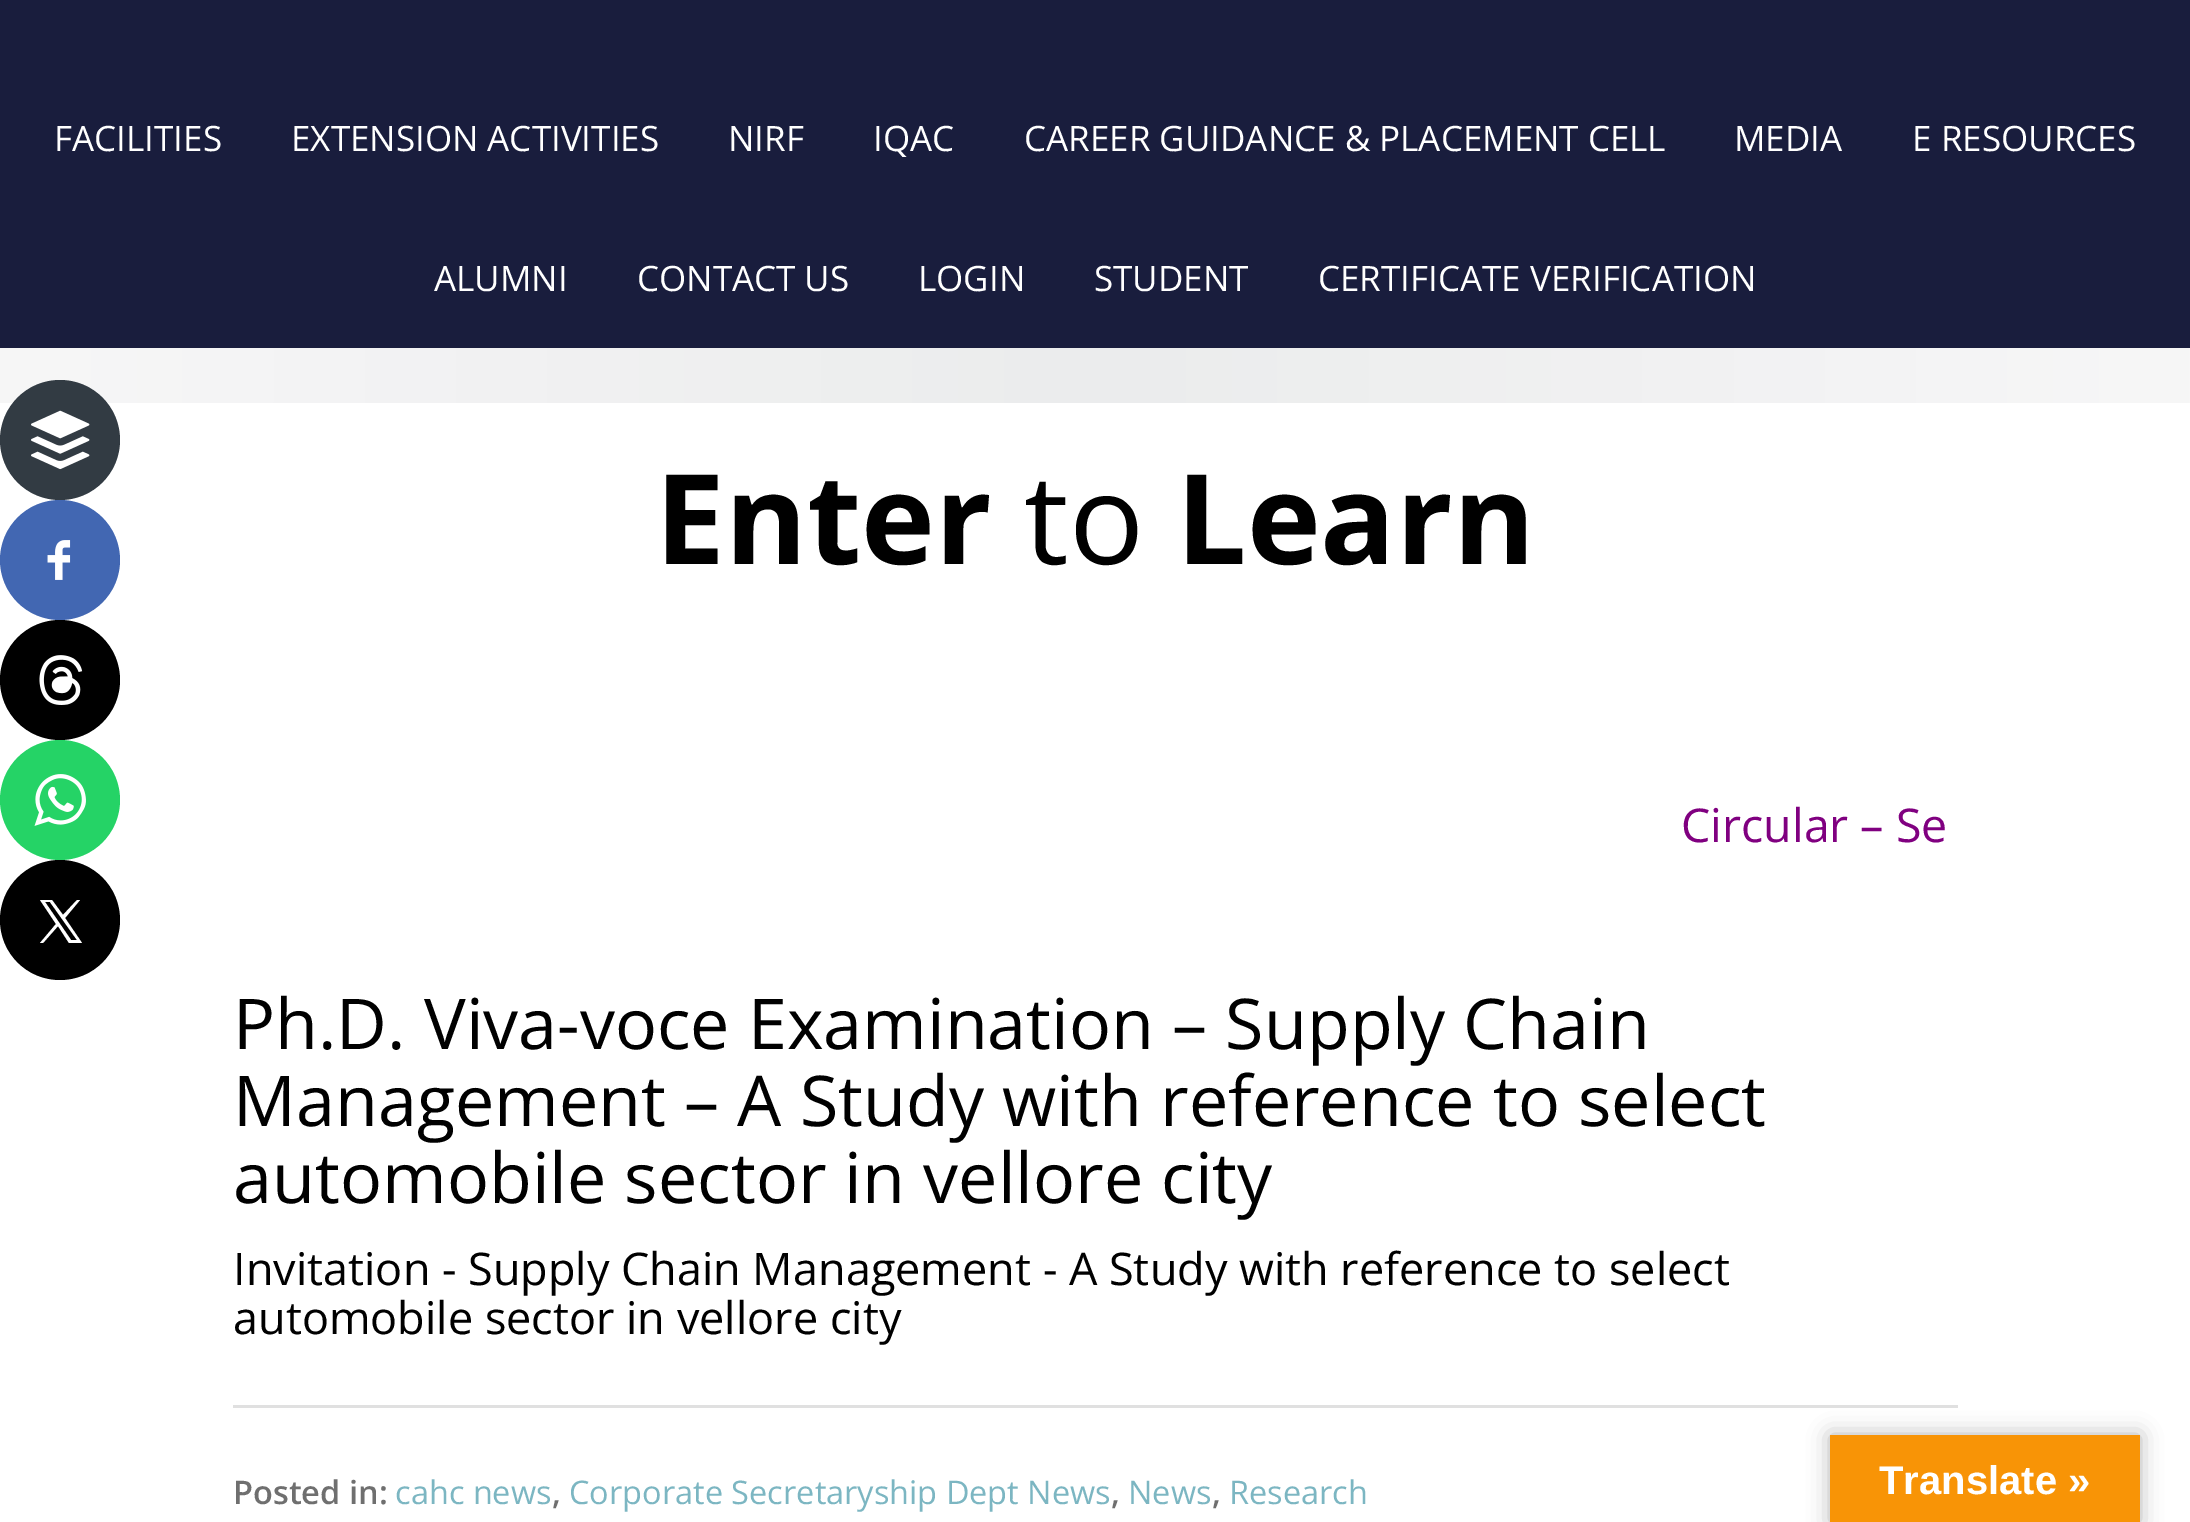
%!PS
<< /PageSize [2190 1522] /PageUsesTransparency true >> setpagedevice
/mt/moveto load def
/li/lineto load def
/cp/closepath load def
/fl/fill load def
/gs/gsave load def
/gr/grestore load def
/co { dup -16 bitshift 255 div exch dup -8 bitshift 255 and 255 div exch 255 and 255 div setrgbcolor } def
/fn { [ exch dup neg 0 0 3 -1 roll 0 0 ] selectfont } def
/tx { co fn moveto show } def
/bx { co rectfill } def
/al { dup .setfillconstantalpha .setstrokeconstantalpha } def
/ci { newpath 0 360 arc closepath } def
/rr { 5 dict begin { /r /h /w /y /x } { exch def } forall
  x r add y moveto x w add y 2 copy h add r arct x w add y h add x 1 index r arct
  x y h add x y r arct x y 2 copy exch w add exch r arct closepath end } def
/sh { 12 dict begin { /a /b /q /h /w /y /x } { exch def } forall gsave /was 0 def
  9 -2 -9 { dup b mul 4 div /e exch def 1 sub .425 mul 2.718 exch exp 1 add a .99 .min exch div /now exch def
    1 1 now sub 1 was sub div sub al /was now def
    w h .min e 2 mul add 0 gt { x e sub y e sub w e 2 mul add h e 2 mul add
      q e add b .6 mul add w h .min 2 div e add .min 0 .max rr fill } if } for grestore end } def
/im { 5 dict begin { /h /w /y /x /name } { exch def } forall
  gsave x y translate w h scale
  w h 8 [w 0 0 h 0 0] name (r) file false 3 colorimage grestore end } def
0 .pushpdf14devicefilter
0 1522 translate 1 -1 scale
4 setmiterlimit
0 0 2190 1522 16#FFFFFF bx
0 0 2190 348 16#191D3D bx
gs 0 348 mt 2190 348 li 2190 403 li 0 403 li cp clip newpath
<< /ShadingType 2 /ColorSpace /DeviceRGB /Coords [0 375 2190 375] /Extend [true true] /Function << /FunctionType 3 /Domain [0 1] /Functions [<< /FunctionType 2 /Domain [0 1] /C0 [.969 .969 .969] /C1 [.922 .925 .929] /N 1 >> << /FunctionType 2 /Domain [0 1] /C0 [.922 .925 .929] /C1 [.969 .969 .969] /N 1 >>] /Bounds [.5] /Encode [0 1 0 1] >> >> shfill gr
233 1405 1725 3 16#E0E0E0 bx
16#323B43 co
60 440 60 ci fl
(media/1.raw) 31 410 59 60 im
16#4267B2 co
60 560 60 ci fl
(media/2.raw) 47 540 24 40 im
16#000000 co
60 680 60 ci fl
(media/3.raw) 39 655 44 50 im
16#25D366 co
60 800 60 ci fl
(media/4.raw) 34 774 52 52 im
16#000000 co
60 920 60 ci fl
16#FFFFFF co
65 918 mt 80 900 li 77 900 li 63 915 li 52 900 li 40 900 li 56 924 li 40 943 li 43 943 li 58 926 li 69 943 li 82 943 li cp 45 902 mt 50 902 li 77 940 li 71 940 li cp fl
16#000000 co
1830 1435 310 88 0 11 .3 sh
1830 1435 310 87 16#F89406 bx
(FACILITIES) 54 151 /OpenSans-Regular 35 16#FFFFFF tx
(EXTENSION ACTIVITIES) 291 151 /OpenSans-Regular 35 16#FFFFFF tx
(NIRF) 728 151 /OpenSans-Regular 35 16#FFFFFF tx
(IQAC) 873 151 /OpenSans-Regular 35 16#FFFFFF tx
(CAREER GUIDANCE & PLACEMENT CELL) 1024 151 /OpenSans-Regular 35 16#FFFFFF tx
(MEDIA) 1734 151 /OpenSans-Regular 35 16#FFFFFF tx
(E RESOURCES) 1912 151 /OpenSans-Regular 35 16#FFFFFF tx
(ALUMNI) 434 291 /OpenSans-Regular 35 16#FFFFFF tx
(CONTACT US) 637 291 /OpenSans-Regular 35 16#FFFFFF tx
(LOGIN) 918 291 /OpenSans-Regular 35 16#FFFFFF tx
(STUDENT) 1094 291 /OpenSans-Regular 35 16#FFFFFF tx
(CERTIFICATE VERIFICATION) 1318 291 /OpenSans-Regular 35 16#FFFFFF tx
(Enter) 655 564 /OpenSans-Bold 125 16#000000 tx
(to) 1024 564 /OpenSans-Regular 125 16#000000 tx
(Learn) 1176 564 /OpenSans-Bold 125 16#000000 tx
(Circular – Se) 1681 842 /OpenSans-Regular 46.5 16#800080 tx
(Ph.D. Viva-voce Examination – Supply Chain) 233 1049 /OpenSans-Regular 70 16#000000 tx
(Management – A Study with reference to select) 233 1126 /OpenSans-Regular 70 16#000000 tx
(automobile sector in vellore city) 233 1203 /OpenSans-Regular 70 16#000000 tx
(Invitation - Supply Chain Management - A Study with reference to select) 233 1285 /OpenSans-Regular 45 16#000000 tx
(automobile sector in vellore city) 233 1334 /OpenSans-Regular 45 16#000000 tx
(Posted in:) 233 1504 /OpenSans-SemiBold 32.5 16#6F6F6F tx
(cahc news) 395 1504 /OpenSans-Regular 32.5 16#7CB6C2 tx
(,) 552 1504 /OpenSans-SemiBold 32.5 16#6F6F6F tx
(Corporate Secretaryship Dept News) 569 1504 /OpenSans-Regular 32.5 16#7CB6C2 tx
(,) 1111 1504 /OpenSans-SemiBold 32.5 16#6F6F6F tx
(News) 1128 1504 /OpenSans-Regular 32.5 16#7CB6C2 tx
(,) 1212 1504 /OpenSans-SemiBold 32.5 16#6F6F6F tx
(Research) 1229 1504 /OpenSans-Regular 32.5 16#7CB6C2 tx
(Translate ») 1879 1494 /LiberationSans-Bold 40 16#FFFFFF tx
.poppdf14devicefilter showpage
